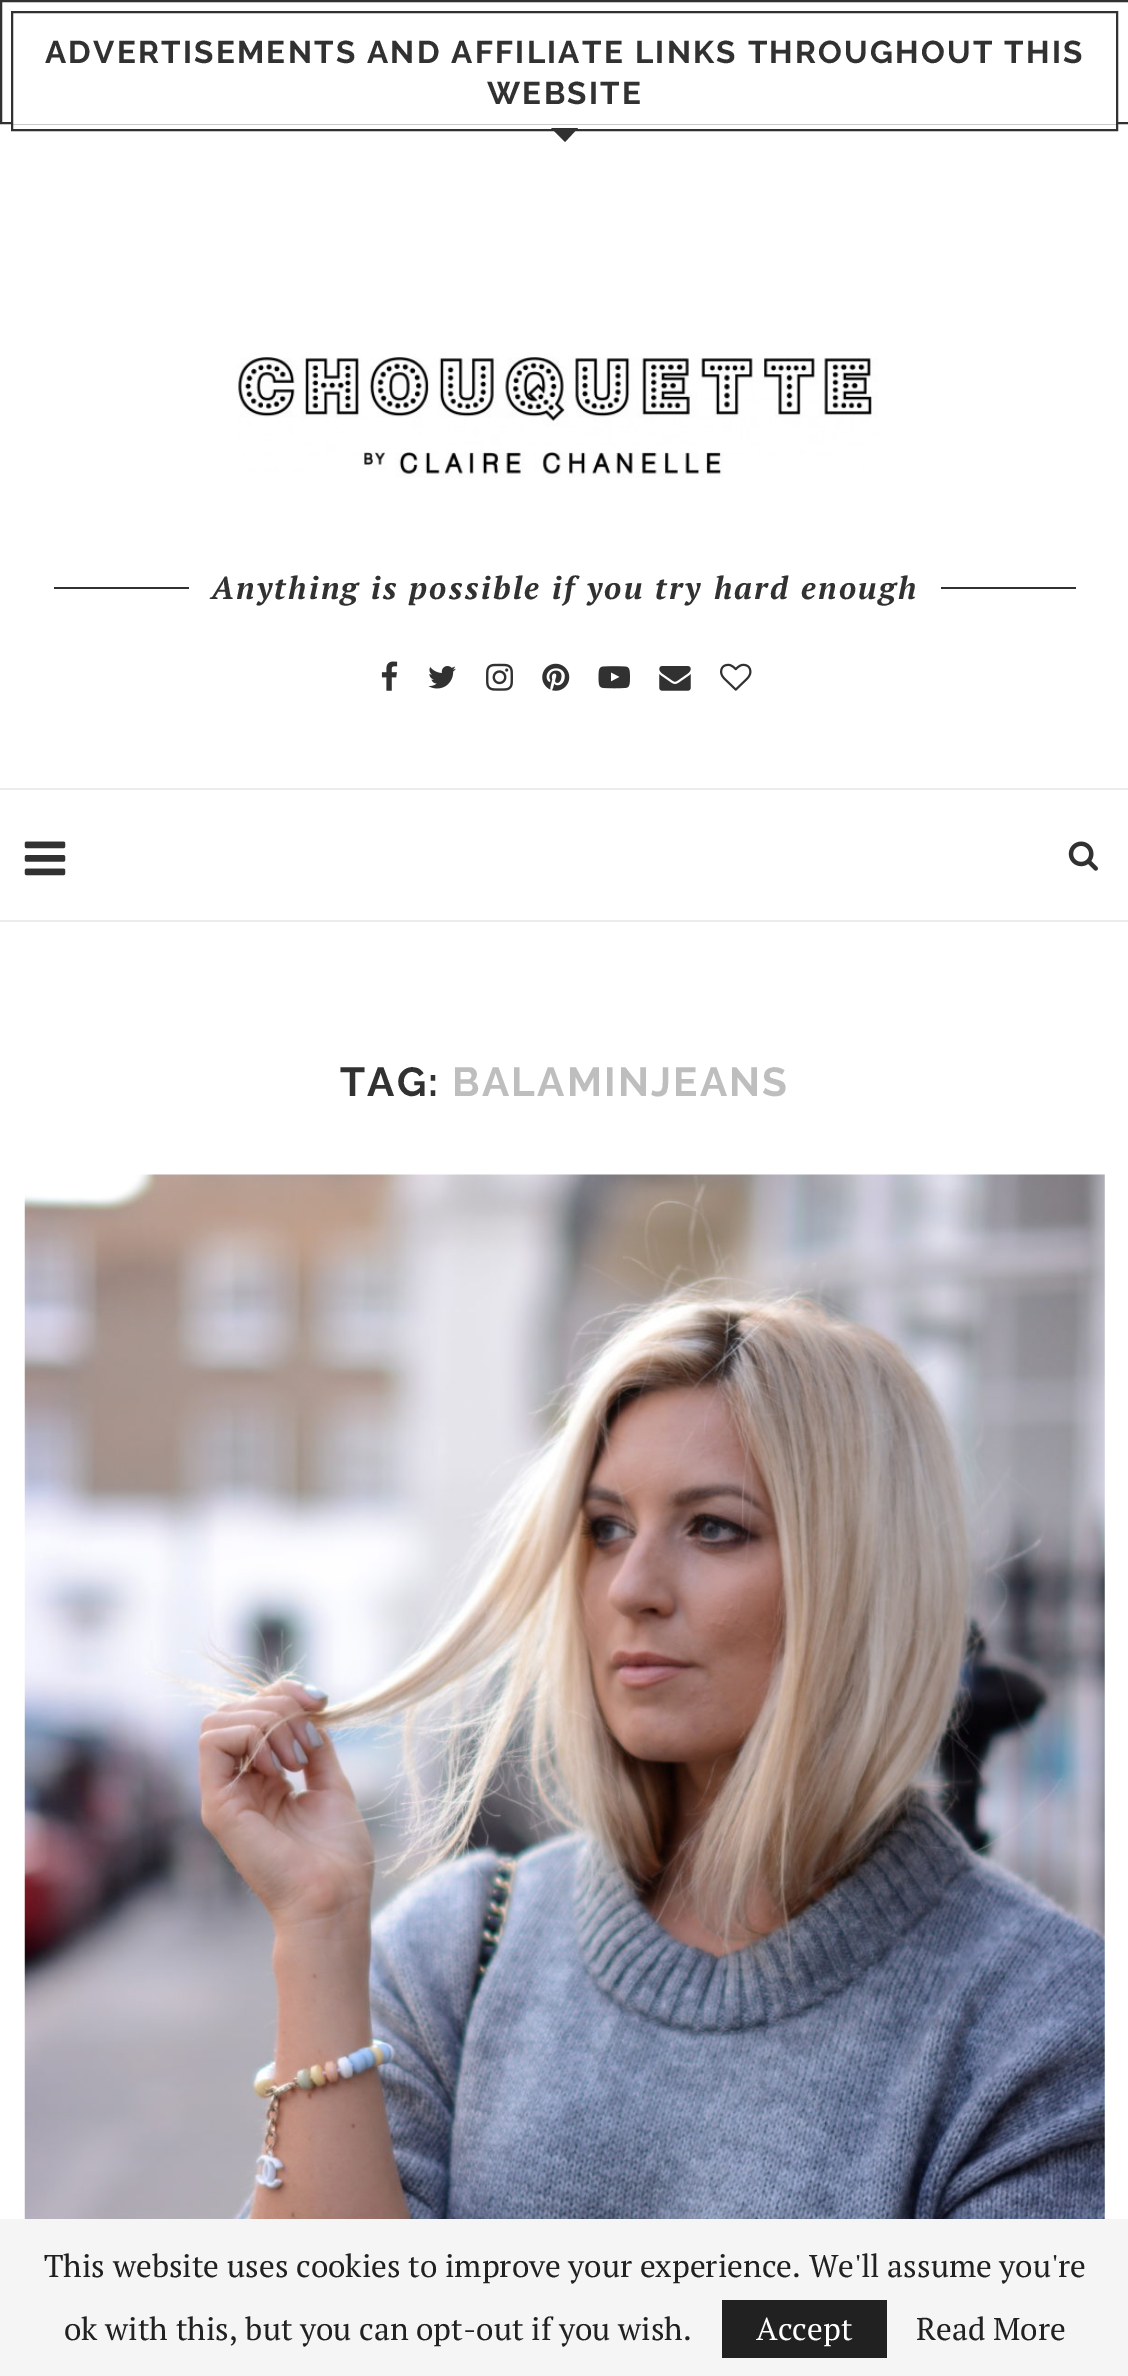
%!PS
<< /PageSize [1128 2376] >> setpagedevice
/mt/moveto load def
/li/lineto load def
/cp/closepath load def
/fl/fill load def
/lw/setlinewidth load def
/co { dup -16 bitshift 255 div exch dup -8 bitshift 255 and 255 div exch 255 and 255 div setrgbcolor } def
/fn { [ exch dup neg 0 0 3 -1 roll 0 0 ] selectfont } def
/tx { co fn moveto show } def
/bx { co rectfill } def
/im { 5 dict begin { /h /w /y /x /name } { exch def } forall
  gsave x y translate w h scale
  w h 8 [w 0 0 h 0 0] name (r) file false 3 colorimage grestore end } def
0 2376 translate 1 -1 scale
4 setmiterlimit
0 0 1128 2376 16#FFFFFF bx
16#313131 co
2 lw
1 1 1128 122 rectstroke
13 122 1103 2 16#FFFFFF bx
16#313131 co
12 12 1105 118 rectstroke
551 128 mt 578 128 li 565 142 li cp fl
(media/1.raw) 236 357 642 121 im
54 587 135 2 16#313131 bx
941 587 135 2 16#313131 bx
(media/2.raw) 381 661 17 30 im
(media/3.raw) 428 666 28 23 im
(media/4.raw) 486 663 27 28 im
(media/5.raw) 542 663 28 28 im
(media/6.raw) 598 666 32 23 im
(media/7.raw) 659 666 32 25 im
(media/8.raw) 720 663 32 28 im
0 788 1128 2 16#ECECEC bx
0 920 1128 2 16#ECECEC bx
(media/9.raw) 24 841 42 35 im
(media/10.raw) 1068 841 30 30 im
(media/11.raw) 24 1174 1081 1045 im
0 2219 1128 157 16#F5F5F5 bx
722 2300 165 58 16#212121 bx
/Raleway-Bold 31.5 fn
16#313131 co
45 63 mt 2.25 0 (ADVERTISEMENTS AND AFFILIATE LINKS THROUGHOUT THIS) ashow
487 104 mt 2.25 0 (WEBSITE) ashow
/PTSerif-BoldItalic 31.5 fn
211 599 mt 2.25 0 (Anything is possible if you try hard enough) ashow
/Raleway-Bold 40.5 fn
340 1096 mt 2.25 0 (TAG:) ashow
16#BEBEBE co
452 1096 mt 2.25 0 (BALAMINJEANS) ashow
(This website uses cookies to improve your experience. We'll assume you're) 44 2277 /PTSerif-Regular 31.5 16#212121 tx
(ok with this, but you can opt-out if you wish.) 64 2340 /PTSerif-Regular 31.5 16#212121 tx
(Accept) 756 2340 /PTSerif-Regular 31.5 16#FFFFFF tx
(Read More) 916 2340 /PTSerif-Regular 31.5 16#212121 tx
showpage
